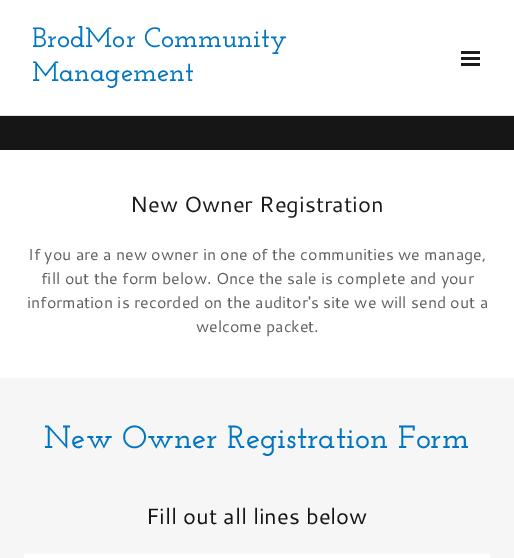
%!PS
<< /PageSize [514 558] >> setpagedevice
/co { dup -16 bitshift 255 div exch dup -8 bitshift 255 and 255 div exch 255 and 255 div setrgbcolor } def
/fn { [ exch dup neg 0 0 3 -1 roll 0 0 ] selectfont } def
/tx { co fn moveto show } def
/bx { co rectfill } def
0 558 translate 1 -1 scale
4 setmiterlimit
0 0 514 558 16#161616 bx
0 0 514 115 16#FFFFFF bx
461 51 19 3 16#1B1B1B bx
461 57 19 3 16#1B1B1B bx
461 63 19 3 16#1B1B1B bx
0 115 514 1 16#E2E2E2 bx
0 150 514 228 16#FFFFFF bx
0 378 514 180 16#F6F6F6 bx
24 554 466 4 16#FFFFFF bx
(BrodMor Community) 32 47 /JosefinSlab-Thin 28 16#0075C1 tx
(Management) 32 81 /JosefinSlab-Thin 28 16#0075C1 tx
(New Owner Registration) 130 212 /Cantarell-Regular 22 16#1B1B1B tx
(If you are a new owner in one of the communities we manage,) 28 260 /Cantarell-Regular 16 16#5E5E5E tx
(fill out the form below. Once the sale is complete and your) 41 284 /Cantarell-Regular 16 16#5E5E5E tx
(information is recorded on the auditor's site we will send out a) 27 308 /Cantarell-Regular 16 16#5E5E5E tx
(welcome packet.) 196 332 /Cantarell-Regular 16 16#5E5E5E tx
(New Owner Registration Form) 44 448 /JosefinSlab-Thin 32 16#0075C1 tx
(Fill out all lines below) 146 524 /Cantarell-Regular 22 16#151515 tx
showpage
